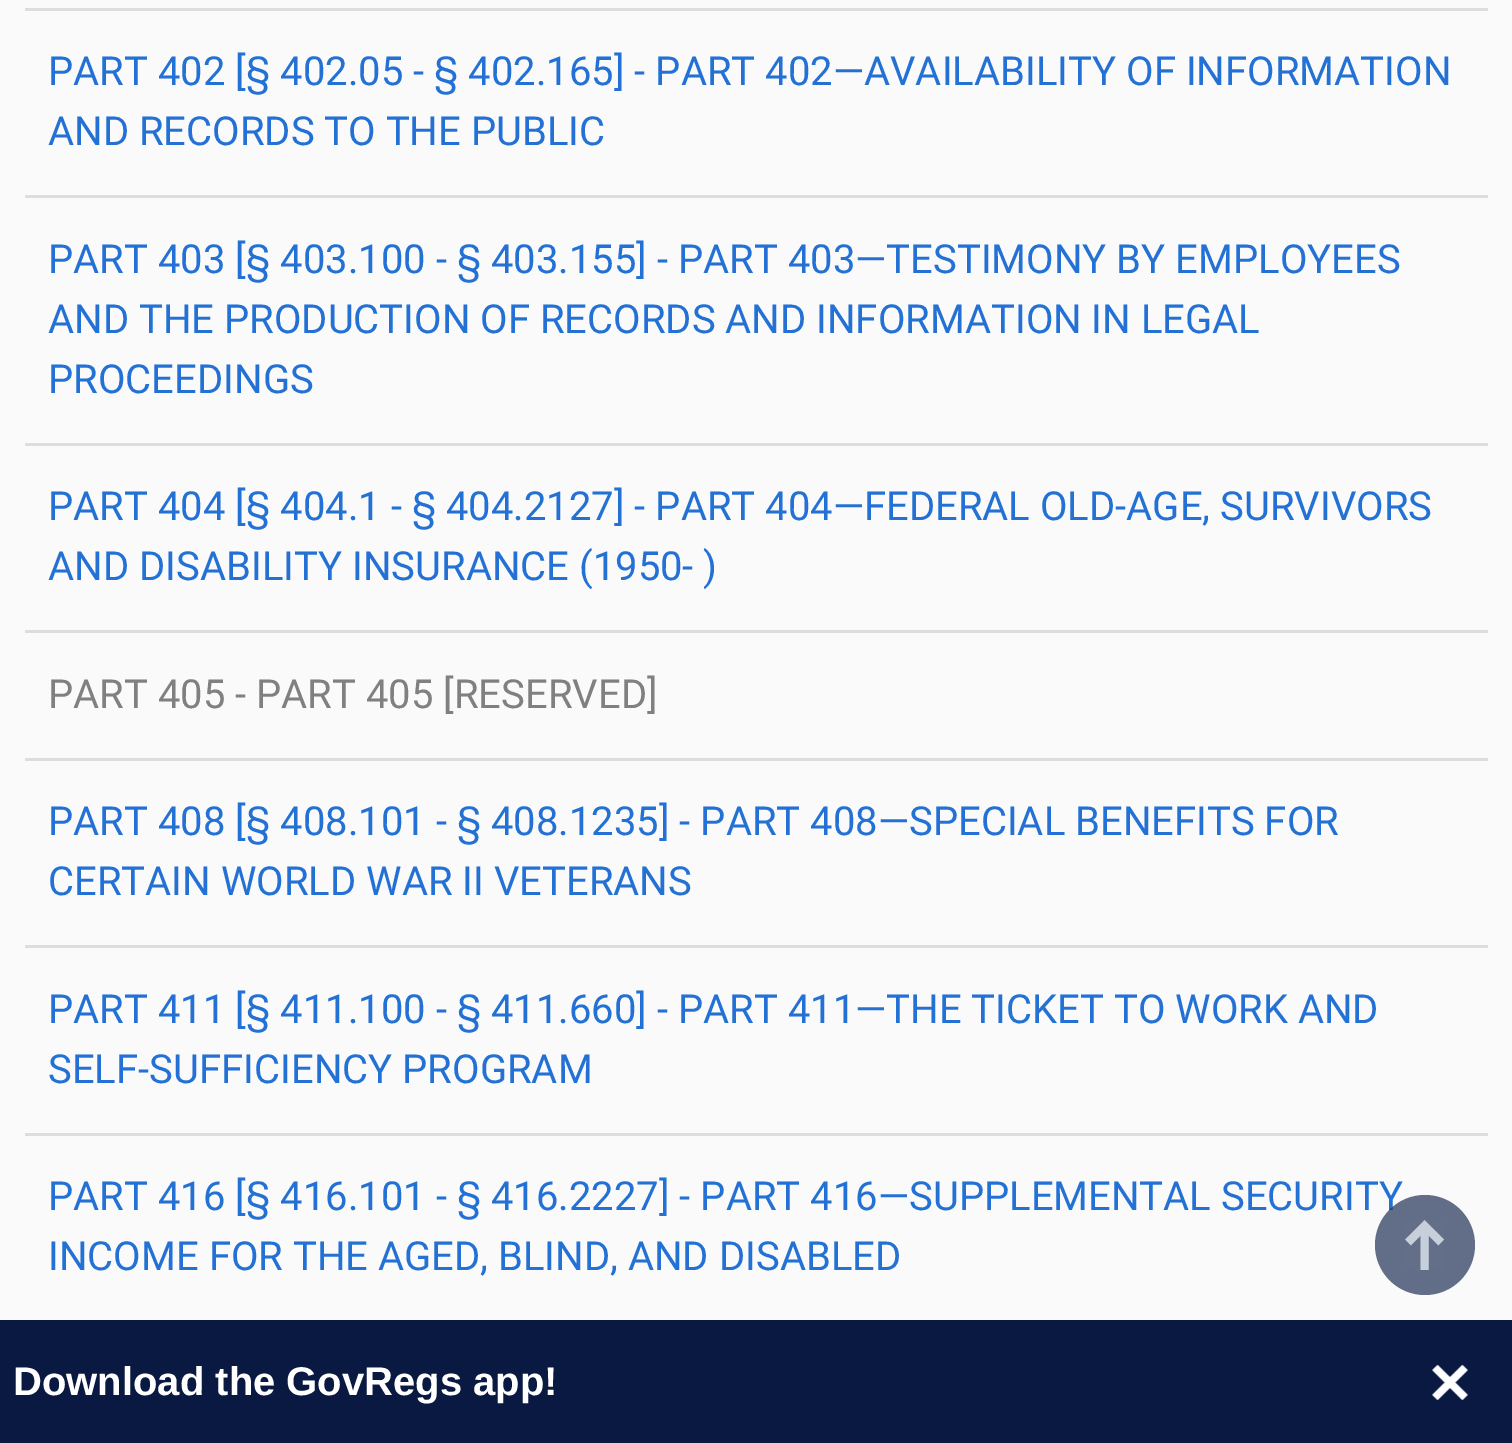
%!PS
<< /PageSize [1512 1443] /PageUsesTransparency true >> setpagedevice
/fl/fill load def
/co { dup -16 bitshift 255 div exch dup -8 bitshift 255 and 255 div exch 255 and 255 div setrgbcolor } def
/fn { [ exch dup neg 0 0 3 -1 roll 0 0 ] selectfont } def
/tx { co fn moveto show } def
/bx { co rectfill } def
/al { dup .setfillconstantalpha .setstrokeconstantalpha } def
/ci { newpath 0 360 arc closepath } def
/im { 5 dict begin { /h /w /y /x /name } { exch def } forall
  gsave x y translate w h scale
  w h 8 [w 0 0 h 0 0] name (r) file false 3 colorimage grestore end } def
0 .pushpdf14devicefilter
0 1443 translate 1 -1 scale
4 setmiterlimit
0 0 1512 1443 16#FAFAFA bx
25 8 1463 3 16#DDDDDD bx
25 195 1463 3 16#DDDDDD bx
25 443 1463 3 16#DDDDDD bx
25 630 1463 3 16#DDDDDD bx
25 758 1463 3 16#DDDDDD bx
25 945 1463 3 16#DDDDDD bx
25 1133 1463 3 16#DDDDDD bx
0 1320 1512 123 16#091942 bx
(media/2.raw) 1432 1365 36 35 im
(PART 402 [§ 402.05 - § 402.165] - PART 402—AVAILABILITY OF INFORMATION) 48 85 /Roboto-Regular 40 16#2371D4 tx
(AND RECORDS TO THE PUBLIC) 48 145 /Roboto-Regular 40 16#2371D4 tx
(PART 403 [§ 403.100 - § 403.155] - PART 403—TESTIMONY BY EMPLOYEES) 48 273 /Roboto-Regular 40 16#2371D4 tx
(AND THE PRODUCTION OF RECORDS AND INFORMATION IN LEGAL) 48 333 /Roboto-Regular 40 16#2371D4 tx
(PROCEEDINGS) 48 393 /Roboto-Regular 40 16#2371D4 tx
(PART 404 [§ 404.1 - § 404.2127] - PART 404—FEDERAL OLD-AGE, SURVIVORS) 48 520 /Roboto-Regular 40 16#2371D4 tx
(AND DISABILITY INSURANCE \(1950- \)) 48 580 /Roboto-Regular 40 16#2371D4 tx
(PART 405 - PART 405 [RESERVED]) 48 708 /Roboto-Regular 40 16#808080 tx
(PART 408 [§ 408.101 - § 408.1235] - PART 408—SPECIAL BENEFITS FOR) 48 835 /Roboto-Regular 40 16#2371D4 tx
(CERTAIN WORLD WAR II VETERANS) 48 895 /Roboto-Regular 40 16#2371D4 tx
(PART 411 [§ 411.100 - § 411.660] - PART 411—THE TICKET TO WORK AND) 48 1023 /Roboto-Regular 40 16#2371D4 tx
(SELF-SUFFICIENCY PROGRAM) 48 1083 /Roboto-Regular 40 16#2371D4 tx
(PART 416 [§ 416.101 - § 416.2227] - PART 416—SUPPLEMENTAL SECURITY) 48 1210 /Roboto-Regular 40 16#2371D4 tx
(INCOME FOR THE AGED, BLIND, AND DISABLED) 48 1270 /Roboto-Regular 40 16#2371D4 tx
0.7 al
16#223358 co
1425 1245 50 ci fl
1 al
(media/1.raw) 1405 1220 39 50 im
(Download the GovRegs app!) 13 1395 /LiberationSans-Bold 40 16#FFFFFF tx
.poppdf14devicefilter showpage
